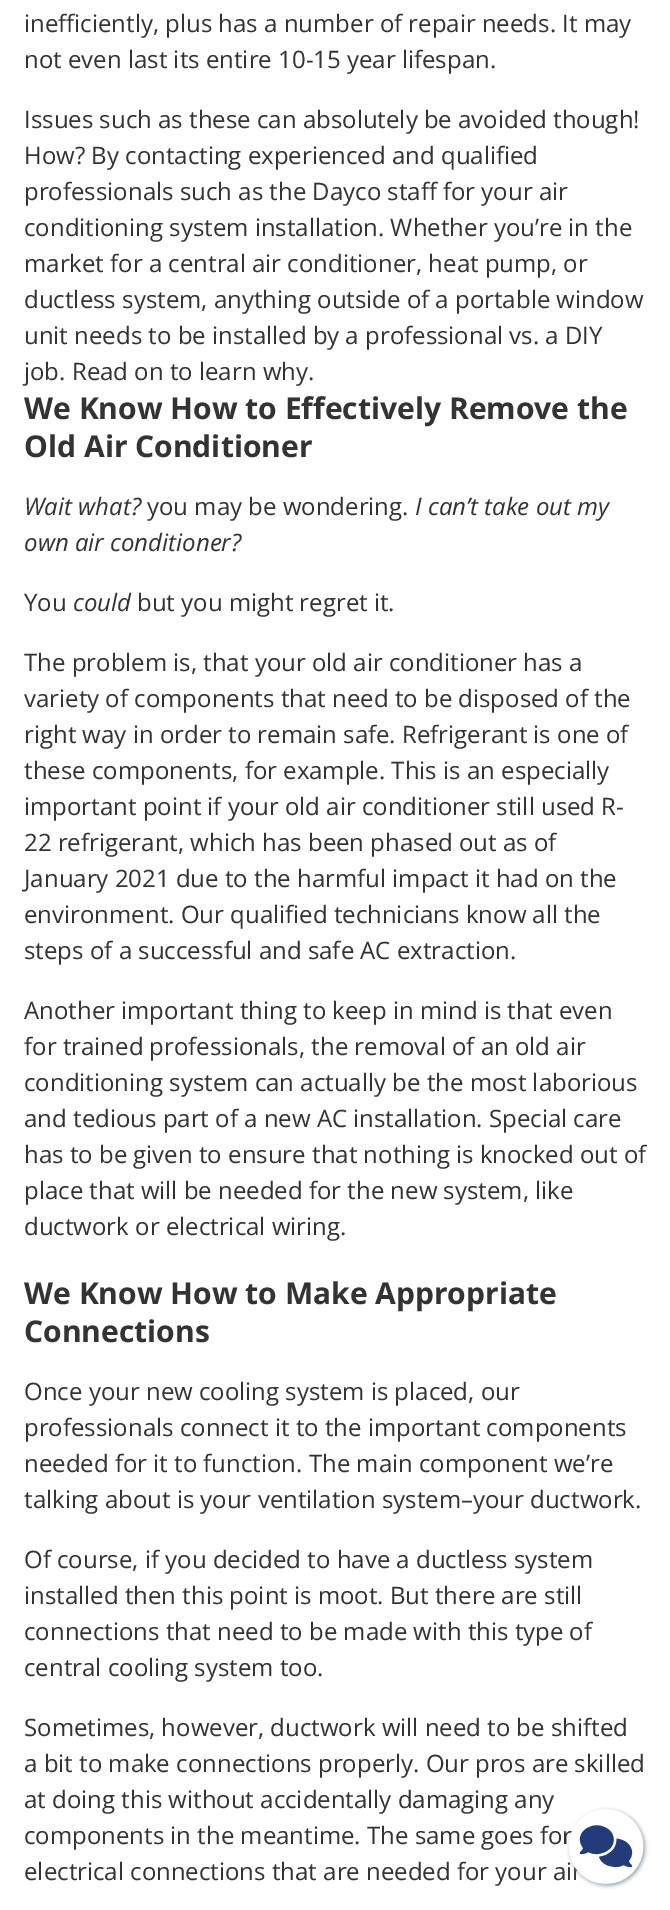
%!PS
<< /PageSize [670 1910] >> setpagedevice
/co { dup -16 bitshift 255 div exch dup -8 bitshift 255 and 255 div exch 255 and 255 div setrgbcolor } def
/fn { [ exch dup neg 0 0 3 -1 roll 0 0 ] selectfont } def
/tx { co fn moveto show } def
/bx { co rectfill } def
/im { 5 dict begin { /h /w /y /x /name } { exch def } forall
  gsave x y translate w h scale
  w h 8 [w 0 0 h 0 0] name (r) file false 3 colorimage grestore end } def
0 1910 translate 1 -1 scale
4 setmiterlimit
0 0 670 1910 16#FFFFFF bx
(inefficiently, plus has a number of repair needs. It may) 24 32 /OpenSans-Regular 24 16#333333 tx
(not even last its entire 10-15 year lifespan.) 24 68 /OpenSans-Regular 24 16#333333 tx
(Issues such as these can absolutely be avoided though!) 24 128 /OpenSans-Regular 24 16#333333 tx
(How? By contacting experienced and qualified) 24 164 /OpenSans-Regular 24 16#333333 tx
(professionals such as the Dayco staff for your air) 24 200 /OpenSans-Regular 24 16#333333 tx
(conditioning system installation. Whether you’re in the) 24 236 /OpenSans-Regular 24 16#333333 tx
(market for a central air conditioner, heat pump, or) 24 272 /OpenSans-Regular 24 16#333333 tx
(ductless system, anything outside of a portable window) 24 308 /OpenSans-Regular 24 16#333333 tx
(unit needs to be installed by a professional vs. a DIY) 24 344 /OpenSans-Regular 24 16#333333 tx
(job. Read on to learn why.) 24 380 /OpenSans-Regular 24 16#333333 tx
(We Know How to Effectively Remove the) 24 419 /OpenSans-Bold 30 16#333333 tx
(Old Air Conditioner) 24 457 /OpenSans-Bold 30 16#333333 tx
(Wait what?) 24 515 /OpenSans-Italic 24 16#333333 tx
(you may be wondering.) 147 515 /OpenSans-Regular 24 16#333333 tx
(I can’t take out my) 415 515 /OpenSans-Italic 24 16#333333 tx
(own air conditioner?) 24 551 /OpenSans-Italic 24 16#333333 tx
(You) 24 611 /OpenSans-Regular 24 16#333333 tx
(could) 73 611 /OpenSans-Italic 24 16#333333 tx
(but you might regret it.) 137 611 /OpenSans-Regular 24 16#333333 tx
(The problem is, that your old air conditioner has a) 24 671 /OpenSans-Regular 24 16#333333 tx
(variety of components that need to be disposed of the) 24 707 /OpenSans-Regular 24 16#333333 tx
(right way in order to remain safe. Refrigerant is one of) 24 743 /OpenSans-Regular 24 16#333333 tx
(these components, for example. This is an especially) 24 779 /OpenSans-Regular 24 16#333333 tx
(important point if your old air conditioner still used R-) 24 815 /OpenSans-Regular 24 16#333333 tx
(22 refrigerant, which has been phased out as of) 24 851 /OpenSans-Regular 24 16#333333 tx
(January 2021 due to the harmful impact it had on the) 24 887 /OpenSans-Regular 24 16#333333 tx
(environment. Our qualified technicians know all the) 24 923 /OpenSans-Regular 24 16#333333 tx
(steps of a successful and safe AC extraction.) 24 959 /OpenSans-Regular 24 16#333333 tx
(Another important thing to keep in mind is that even) 24 1019 /OpenSans-Regular 24 16#333333 tx
(for trained professionals, the removal of an old air) 24 1055 /OpenSans-Regular 24 16#333333 tx
(conditioning system can actually be the most laborious) 24 1091 /OpenSans-Regular 24 16#333333 tx
(and tedious part of a new AC installation. Special care) 24 1127 /OpenSans-Regular 24 16#333333 tx
(has to be given to ensure that nothing is knocked out of) 24 1163 /OpenSans-Regular 24 16#333333 tx
(place that will be needed for the new system, like) 24 1199 /OpenSans-Regular 24 16#333333 tx
(ductwork or electrical wiring.) 24 1235 /OpenSans-Regular 24 16#333333 tx
(We Know How to Make Appropriate) 24 1304 /OpenSans-Bold 30 16#333333 tx
(Connections) 24 1342 /OpenSans-Bold 30 16#333333 tx
(Once your new cooling system is placed, our) 24 1400 /OpenSans-Regular 24 16#333333 tx
(professionals connect it to the important components) 24 1436 /OpenSans-Regular 24 16#333333 tx
(needed for it to function. The main component we’re) 24 1472 /OpenSans-Regular 24 16#333333 tx
(talking about is your ventilation system–your ductwork.) 24 1508 /OpenSans-Regular 24 16#333333 tx
(Of course, if you decided to have a ductless system) 24 1568 /OpenSans-Regular 24 16#333333 tx
(installed then this point is moot. But there are still) 24 1604 /OpenSans-Regular 24 16#333333 tx
(connections that need to be made with this type of) 24 1640 /OpenSans-Regular 24 16#333333 tx
(central cooling system too.) 24 1676 /OpenSans-Regular 24 16#333333 tx
(Sometimes, however, ductwork will need to be shifted) 24 1736 /OpenSans-Regular 24 16#333333 tx
(a bit to make connections properly. Our pros are skilled) 24 1772 /OpenSans-Regular 24 16#333333 tx
(at doing this without accidentally damaging any) 24 1808 /OpenSans-Regular 24 16#333333 tx
(components in the meantime. The same goes for) 24 1844 /OpenSans-Regular 24 16#333333 tx
(electrical connections that are needed for your air) 24 1880 /OpenSans-Regular 24 16#333333 tx
(media/1.raw) 566 1807 83 82 im
showpage
